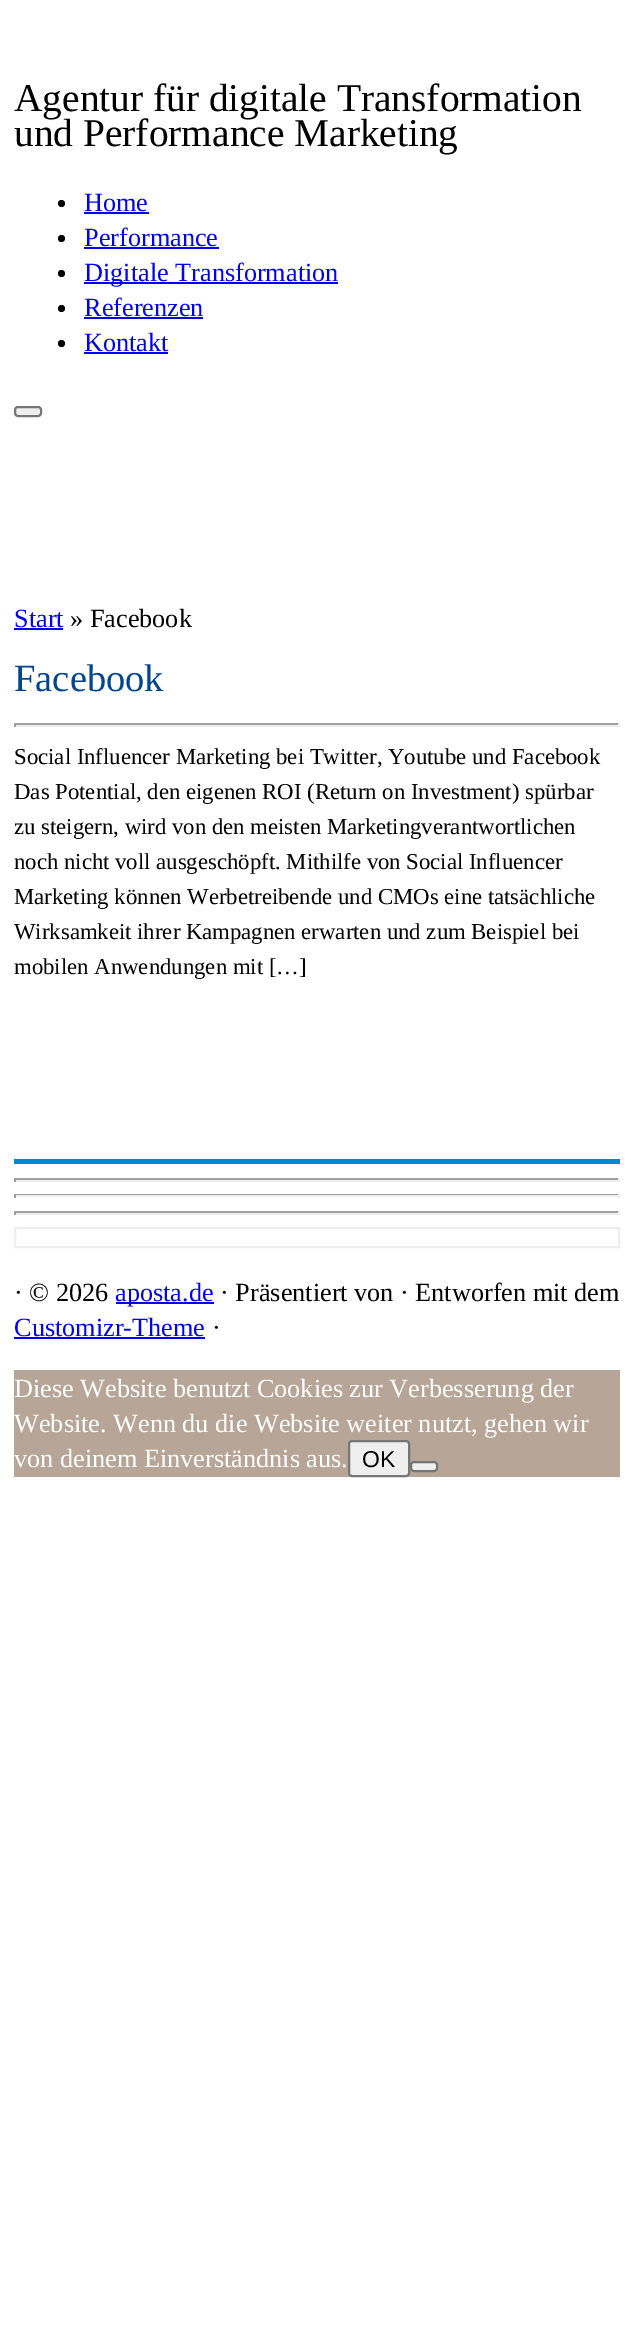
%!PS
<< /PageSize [633 2339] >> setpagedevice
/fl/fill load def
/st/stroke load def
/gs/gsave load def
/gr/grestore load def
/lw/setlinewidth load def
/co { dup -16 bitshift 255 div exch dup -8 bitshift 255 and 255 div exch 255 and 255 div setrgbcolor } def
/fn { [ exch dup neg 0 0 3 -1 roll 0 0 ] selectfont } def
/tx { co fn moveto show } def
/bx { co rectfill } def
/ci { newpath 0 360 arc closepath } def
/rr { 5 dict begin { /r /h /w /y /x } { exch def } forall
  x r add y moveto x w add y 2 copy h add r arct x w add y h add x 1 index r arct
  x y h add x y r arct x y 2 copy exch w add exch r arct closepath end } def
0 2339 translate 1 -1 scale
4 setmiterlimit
0 0 633 2339 16#FFFFFF bx
16#000000 co
61.5 203.5 3.5 ci fl
84 212 65 2 16#0000EE bx
16#000000 co
61.5 238.5 3.5 ci fl
84 247 135 2 16#0000EE bx
16#000000 co
61.5 273.5 3.5 ci fl
84 282 254 2 16#0000EE bx
16#000000 co
61.5 308.5 3.5 ci fl
84 317 119 2 16#0000EE bx
16#000000 co
61.5 343.5 3.5 ci fl
84 352 84 2 16#0000EE bx
16#EFEFEF co
15 407 26 9 3 rr gs fl gr
16#767676 co
2 lw
st
14 628 49 2 16#0000EE bx
14 723 606 2 16#9F9F9F bx
618 723 2 4 16#EEEEEE bx
14 725 606 2 16#EEEEEE bx
14 723 2 4 16#9F9F9F bx
14 1159 606 5 16#0088CC bx
14 1178 606 2 16#9F9F9F bx
618 1178 2 4 16#EEEEEE bx
14 1180 606 2 16#EEEEEE bx
14 1178 2 4 16#9F9F9F bx
14 1194 606 1 16#9F9F9F bx
618 1194 2 4 16#EEEEEE bx
14 1195 606 2 16#EEEEEE bx
14 1194 2 4 16#9F9F9F bx
14 1211 606 2 16#9F9F9F bx
618 1211 2 4 16#EEEEEE bx
14 1213 606 2 16#EEEEEE bx
14 1211 2 4 16#9F9F9F bx
16#EEEEEE co
15 1228 604 19 rectstroke
116 1302 98 2 16#0000EE bx
14 1337 191 2 16#0000EE bx
14 1370 606 107 16#B7A697 bx
16#EFEFEF co
349 1441 60 35 3 rr gs fl gr
16#767676 co
st
16#EFEFEF co
411 1462 26 9 3 rr gs fl gr
16#767676 co
st
(Agentur für digitale Transformation) 14 111 /LiberationSerif-Regular 39.4 16#000000 tx
(und Performance Marketing) 14 146 /LiberationSerif-Regular 39.4 16#000000 tx
(Home) 84 211 /LiberationSerif-Regular 26.25 16#0000EE tx
(Performance) 84 246 /LiberationSerif-Regular 26.25 16#0000EE tx
(Digitale Transformation) 84 281 /LiberationSerif-Regular 26.25 16#0000EE tx
(Referenzen) 84 316 /LiberationSerif-Regular 26.25 16#0000EE tx
(Kontakt) 84 351 /LiberationSerif-Regular 26.25 16#0000EE tx
(Start) 14 627 /LiberationSerif-Regular 26.25 16#0000EE tx
(» Facebook) 70 627 /LiberationSerif-Regular 26.25 16#000000 tx
(Facebook) 14 691 /LiberationSerif-Regular 38.5 16#00458E tx
(Social Influencer Marketing bei Twitter, Youtube und Facebook) 14 764 /LiberationSerif-Regular 22.75 16#000000 tx
(Das Potential, den eigenen ROI \(Return on Investment\) spürbar) 14 799 /LiberationSerif-Regular 22.75 16#000000 tx
(zu steigern, wird von den meisten Marketingverantwortlichen) 14 834 /LiberationSerif-Regular 22.75 16#000000 tx
(noch nicht voll ausgeschöpft. Mithilfe von Social Influencer) 14 869 /LiberationSerif-Regular 22.75 16#000000 tx
(Marketing können Werbetreibende und CMOs eine tatsächliche) 14 904 /LiberationSerif-Regular 22.75 16#000000 tx
(Wirksamkeit ihrer Kampagnen erwarten und zum Beispiel bei) 14 939 /LiberationSerif-Regular 22.75 16#000000 tx
(mobilen Anwendungen mit […]) 14 974 /LiberationSerif-Regular 22.75 16#000000 tx
(· © 2026) 14 1301 /LiberationSerif-Regular 26.25 16#000000 tx
(aposta.de) 115 1301 /LiberationSerif-Regular 26.25 16#0000EE tx
(· Präsentiert von · Entworfen mit dem) 220 1301 /LiberationSerif-Regular 26.25 16#000000 tx
(Customizr-Theme) 14 1336 /LiberationSerif-Regular 26.25 16#0000EE tx
(·) 212 1336 /LiberationSerif-Regular 26.25 16#000000 tx
(Diese Website benutzt Cookies zur Verbesserung der) 14 1397 /LiberationSerif-Regular 26.25 16#FFFFFF tx
(Website. Wenn du die Website weiter nutzt, gehen wir) 14 1432 /LiberationSerif-Regular 26.25 16#FFFFFF tx
(von deinem Einverständnis aus.) 14 1467 /LiberationSerif-Regular 26.25 16#FFFFFF tx
(OK) 362 1467 /LiberationSans-Regular 23 16#000000 tx
showpage
